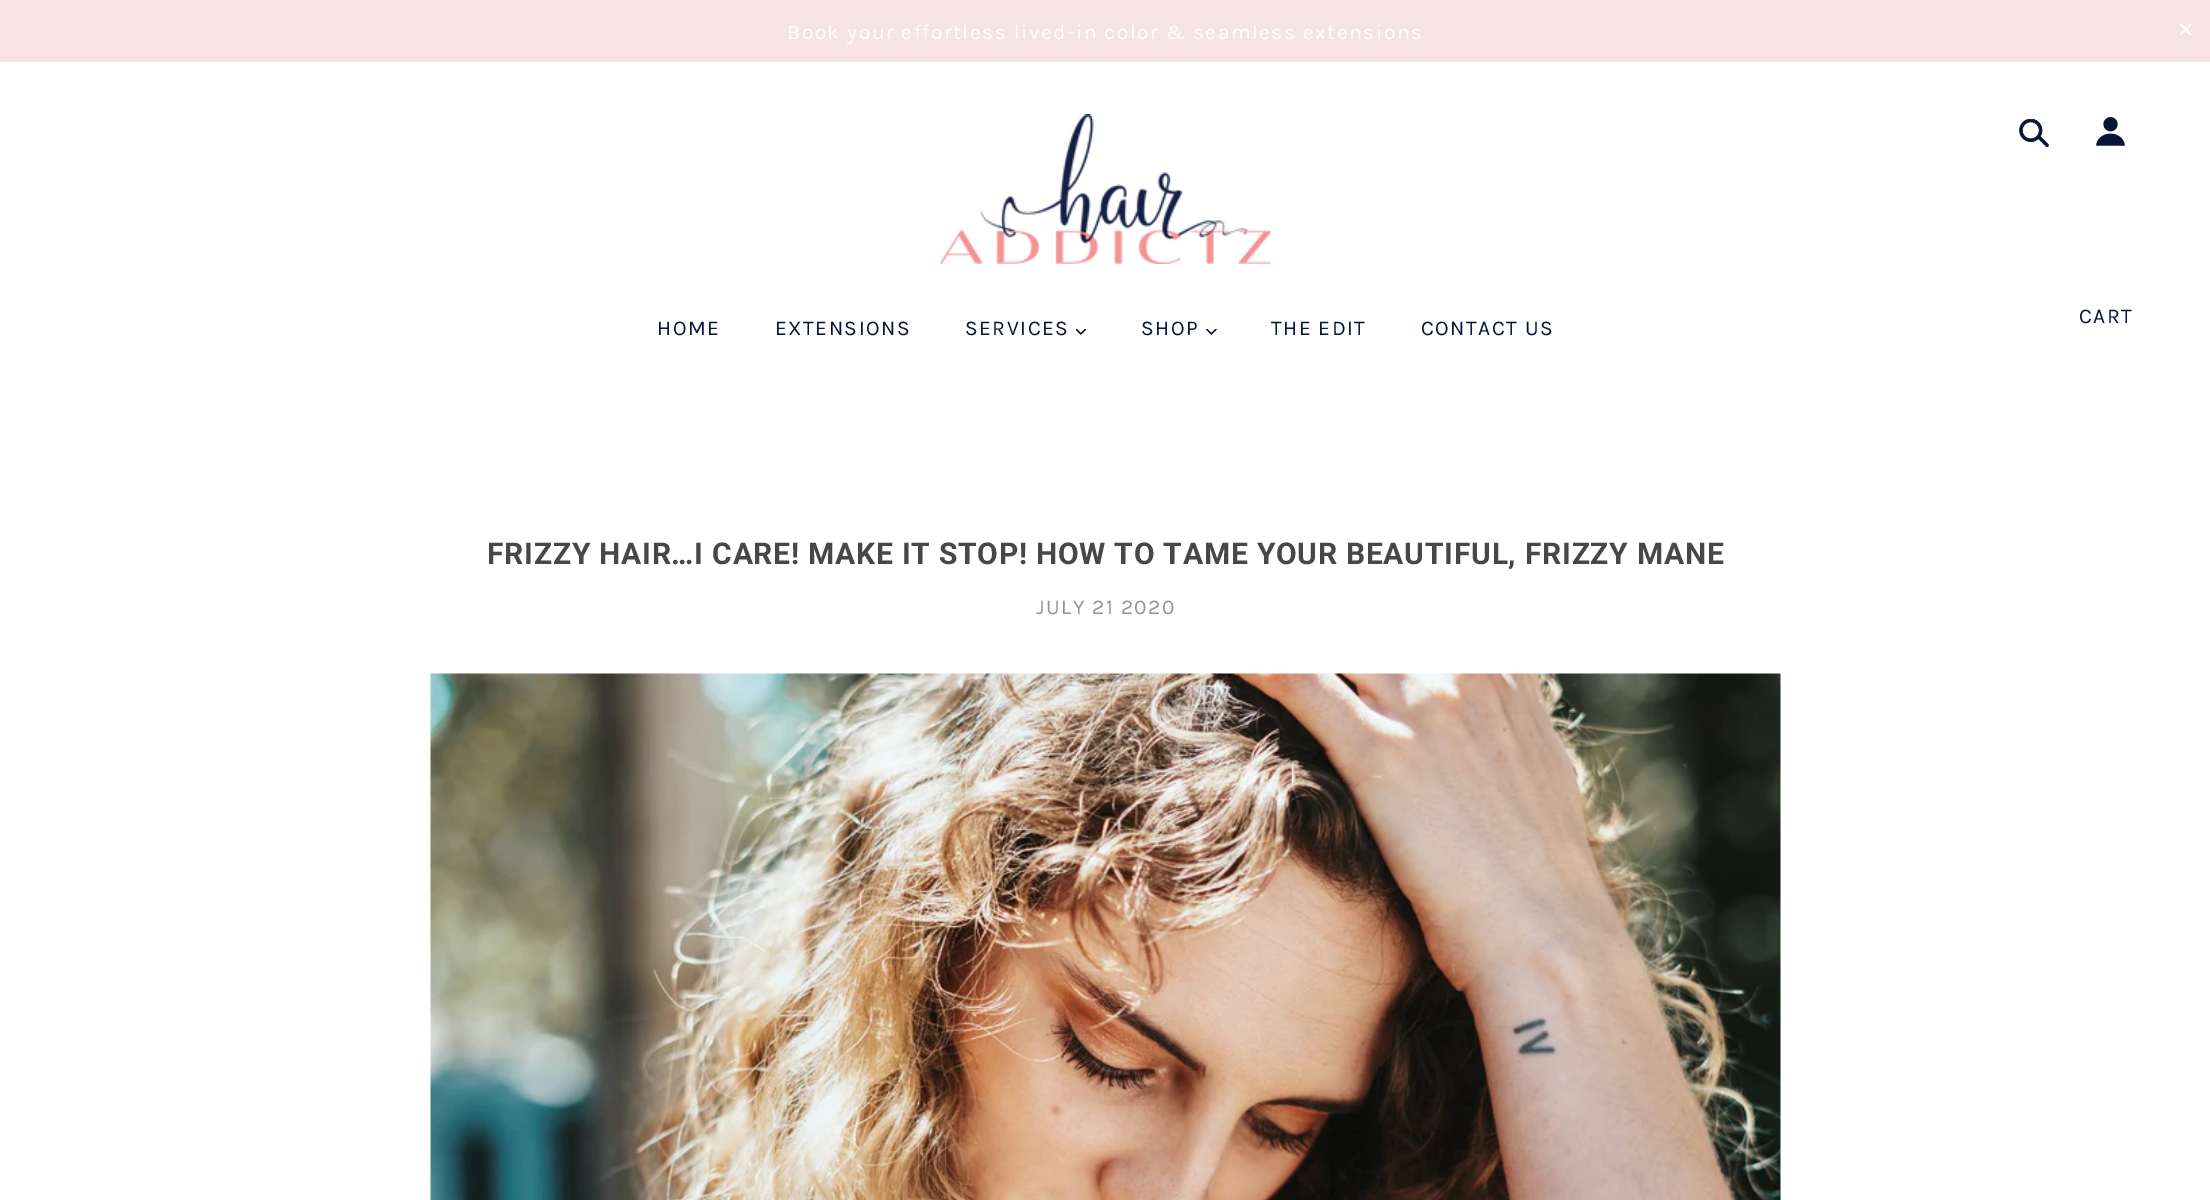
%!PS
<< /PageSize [2210 1200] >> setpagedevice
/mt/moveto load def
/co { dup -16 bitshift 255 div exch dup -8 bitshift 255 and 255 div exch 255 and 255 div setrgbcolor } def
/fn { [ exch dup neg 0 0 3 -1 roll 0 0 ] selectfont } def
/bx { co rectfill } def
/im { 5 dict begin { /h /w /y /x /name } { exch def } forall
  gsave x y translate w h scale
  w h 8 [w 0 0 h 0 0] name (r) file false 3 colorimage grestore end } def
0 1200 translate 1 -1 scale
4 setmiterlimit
0 0 2210 1200 16#FFFFFF bx
0 0 2210 62 16#F7E3E2 bx
(media/1.raw) 940 114 331 150 im
(media/2.raw) 2019 119 30 28 im
(media/3.raw) 2096 117 29 29 im
(media/4.raw) 1076 329 10 6 im
(media/5.raw) 1206 329 11 6 im
(media/6.raw) 430 673 1351 527 im
/Karla-Regular 21 fn
16#FFFFFF co
787 39 mt 1.5 0 (Book your effortless lived-in color & seamless extensions) ashow
/DejaVuSans-Regular 21 fn
2177 37 mt 1.5 0 (✕) ashow
/Karla-Regular 21 fn
16#071437 co
2079 323 mt 1.5 0 (CART) ashow
657 335 mt 1.5 0 (HOME) ashow
775 335 mt 1.5 0 (EXTENSIONS) ashow
965 335 mt 1.5 0 (SERVICES) ashow
1141 335 mt 1.5 0 (SHOP) ashow
1271 335 mt 1.5 0 (THE EDIT) ashow
1421 335 mt 1.5 0 (CONTACT US) ashow
/Roboto-Bold 30 fn
16#474747 co
487 564 mt .75 0 (FRIZZY HAIR…I CARE! MAKE IT STOP! HOW TO TAME YOUR BEAUTIFUL, FRIZZY MANE) ashow
/Karla-Regular 21 fn
16#949494 co
1036 614 mt 1.5 0 (JULY 21 2020) ashow
showpage
